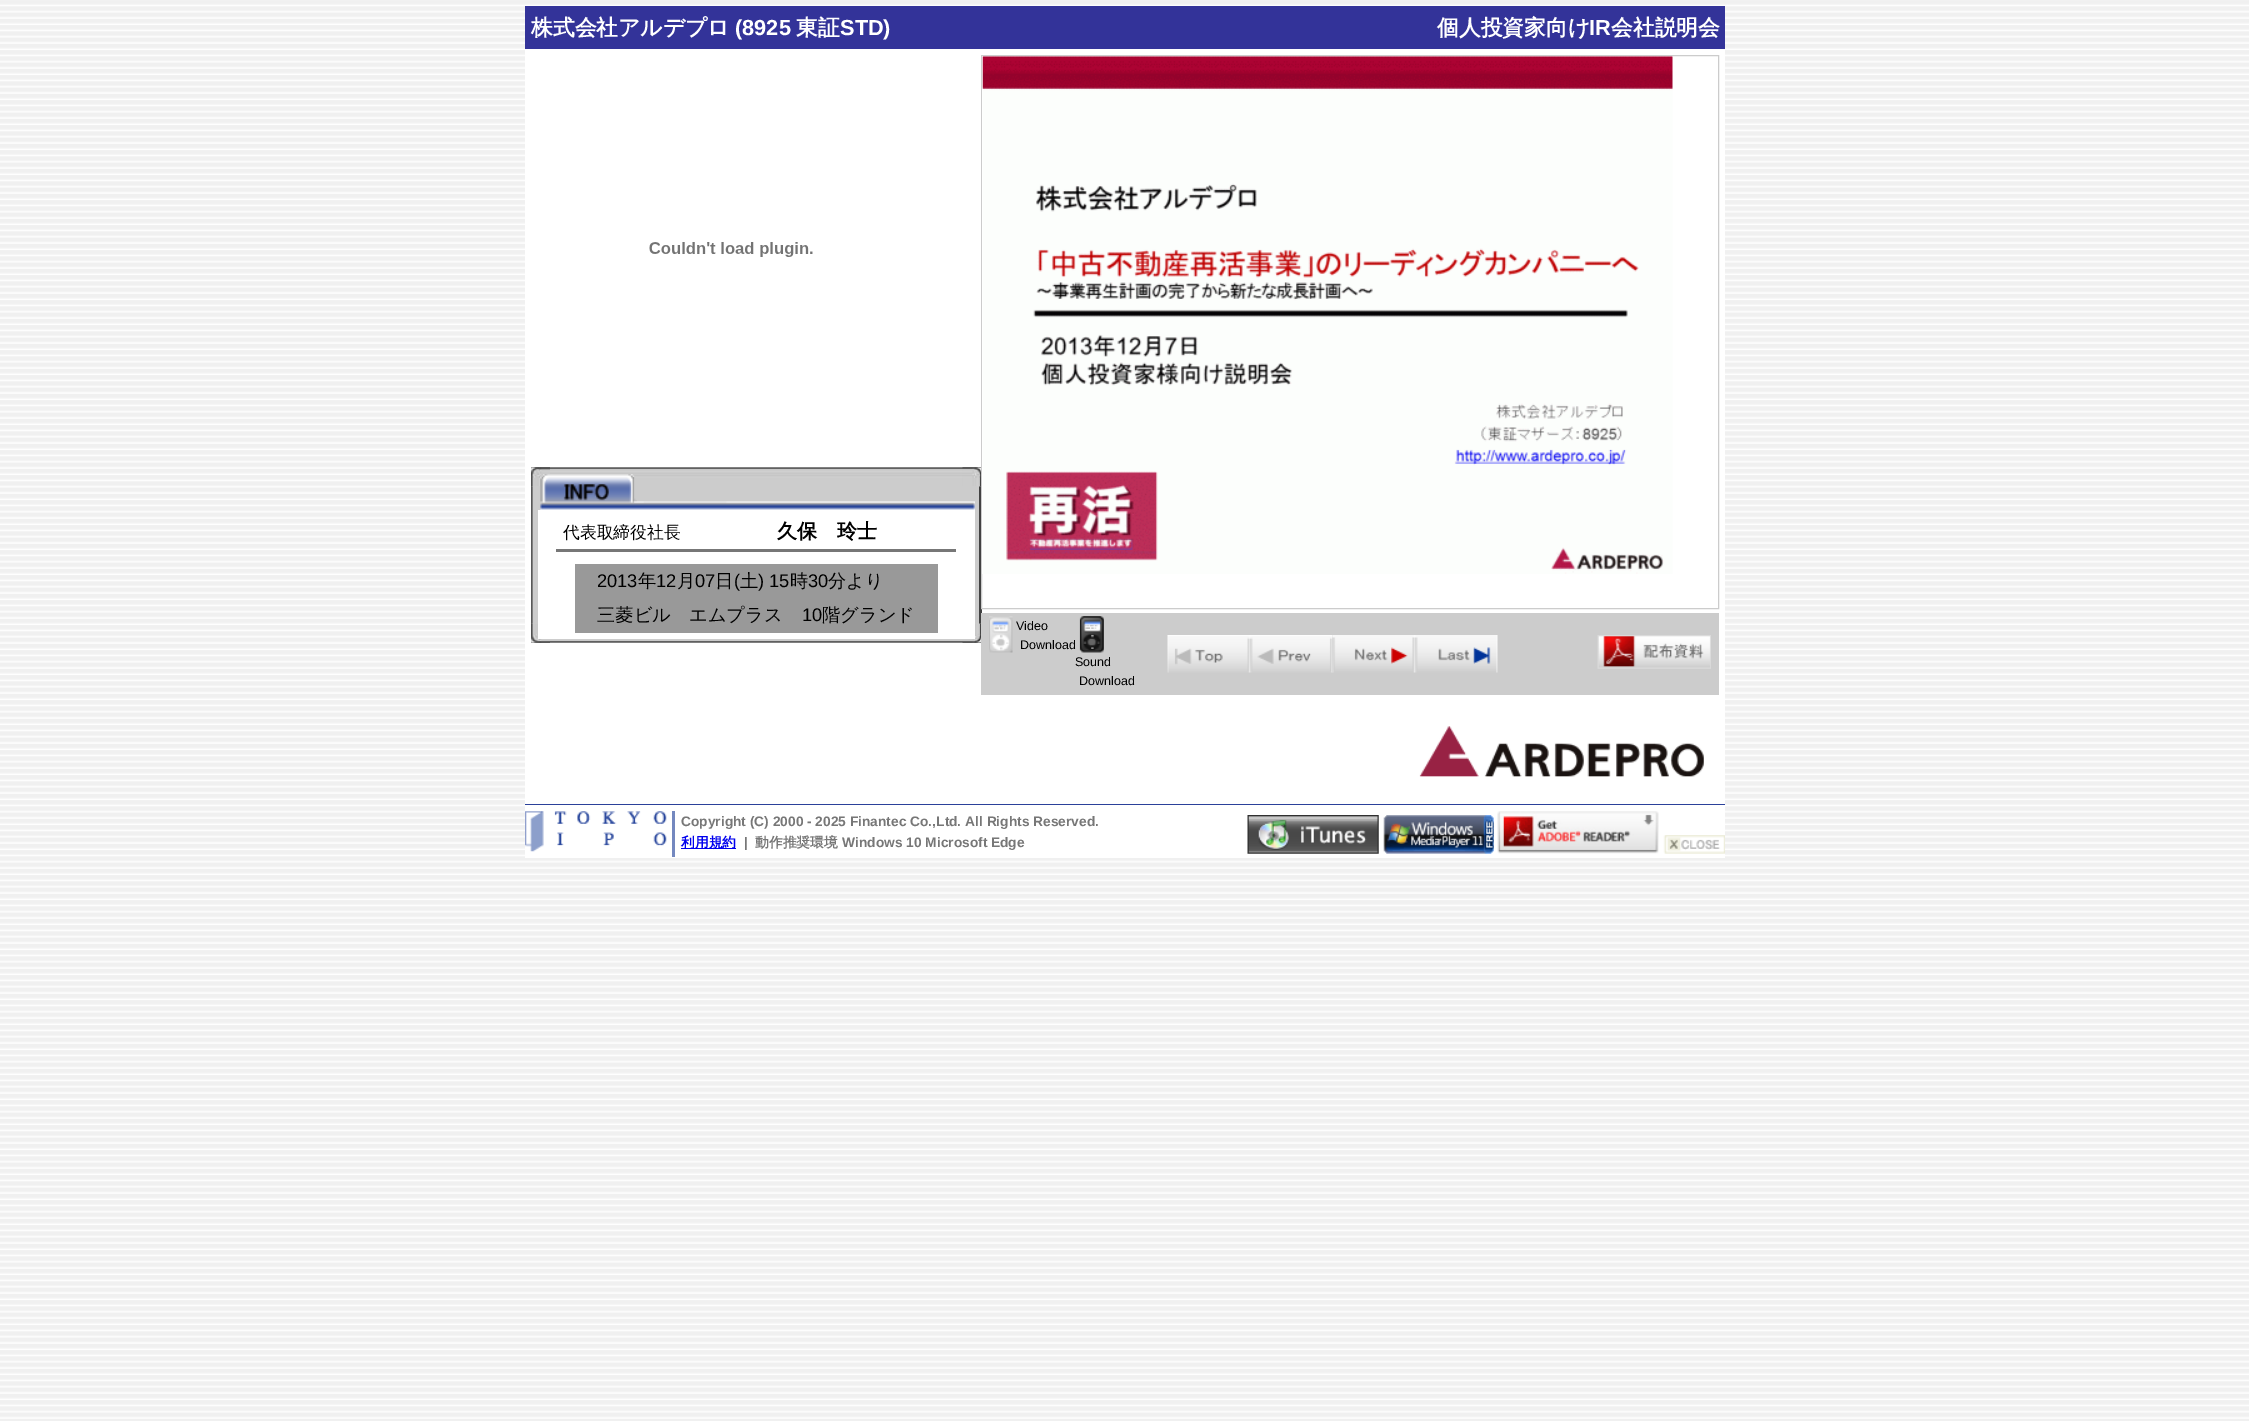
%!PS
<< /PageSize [2249 1421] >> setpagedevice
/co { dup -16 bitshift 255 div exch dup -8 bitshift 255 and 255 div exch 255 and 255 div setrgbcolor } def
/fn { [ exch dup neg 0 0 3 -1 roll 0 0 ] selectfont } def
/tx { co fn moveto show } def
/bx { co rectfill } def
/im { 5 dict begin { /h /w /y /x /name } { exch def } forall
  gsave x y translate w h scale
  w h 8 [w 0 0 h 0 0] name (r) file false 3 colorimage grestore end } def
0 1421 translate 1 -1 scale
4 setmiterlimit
0 0 2249 1421 16#FFFFFF bx
(media/1.raw) 0 0 2249 1421 im
525 50 1200 808 16#FFFFFF bx
525 6 1200 43 16#333399 bx
(media/2.raw) 649 242 164 15 im
531 467 448 176 16#CCCCCC bx
(media/3.raw) 531 467 2 176 im
979 467 3 176 16#424242 bx
(media/4.raw) 531 467 450 20 im
(media/5.raw) 531 467 19 20 im
(media/6.raw) 962 467 19 20 im
(media/7.raw) 540 474 435 36 im
(media/8.raw) 531 623 450 20 im
(media/9.raw) 531 623 19 20 im
(media/10.raw) 962 623 19 20 im
538 510 437 129 16#FFFFFF bx
556 549 400 3 16#777777 bx
575 564 363 69 16#999999 bx
16#CCCCCC co
981.5 55.5 737 553 rectstroke
(media/11.raw) 982 56 691 518 im
981 613 738 82 16#CCCCCC bx
(media/12.raw) 989 616 24 37 im
(media/13.raw) 1079 616 25 37 im
(media/14.raw) 1167 635 83 38 im
(media/15.raw) 1250 635 83 38 im
(media/16.raw) 1332 635 83 38 im
(media/17.raw) 1415 635 83 38 im
(media/18.raw) 1597 635 114 34 im
(media/19.raw) 1419 726 285 51 im
525 804 1200 1 16#2B419A bx
(media/20.raw) 525 811 142 41 im
672 811 3 46 16#7488BF bx
681 848 55 1 16#0000EE bx
(media/21.raw) 1247 815 132 39 im
(media/22.raw) 1383 815 111 39 im
(media/23.raw) 1497 811 162 43 im
(media/24.raw) 1663 835 62 19 im
(株式会社アルデプロ) 531 35 /WenQuanYiZenHei-Bold 21.75 16#FFFFFF tx
(\(8925) 735 35 /LiberationSans-Bold 21.75 16#FFFFFF tx
(東証) 796 35 /WenQuanYiZenHei-Bold 21.75 16#FFFFFF tx
(STD\)) 840 35 /LiberationSans-Bold 21.75 16#FFFFFF tx
(個人投資家向け) 1437 35 /WenQuanYiZenHei-Bold 21.75 16#FFFFFF tx
(IR) 1589 35 /LiberationSans-Bold 21.75 16#FFFFFF tx
(会社説明会) 1611 35 /WenQuanYiZenHei-Bold 21.75 16#FFFFFF tx
(代表取締役社長) 563 538 /WenQuanYiZenHei-Medium 16.75 16#000000 tx
(久保　玲士) 777 538 /WenQuanYiZenHei-Bold 20 16#000000 tx
(2013) 597 587 /LiberationSans-Regular 18.25 16#000000 tx
(年) 638 587 /WenQuanYiZenHei-Medium 18.25 16#000000 tx
(12) 656 587 /LiberationSans-Regular 18.25 16#000000 tx
(月) 677 587 /WenQuanYiZenHei-Medium 18.25 16#000000 tx
(07) 695 587 /LiberationSans-Regular 18.25 16#000000 tx
(日) 715 587 /WenQuanYiZenHei-Medium 18.25 16#000000 tx
(\() 734 587 /LiberationSans-Regular 18.25 16#000000 tx
(土) 740 587 /WenQuanYiZenHei-Medium 18.25 16#000000 tx
(\) 15) 758 587 /LiberationSans-Regular 18.25 16#000000 tx
(時) 790 587 /WenQuanYiZenHei-Medium 18.25 16#000000 tx
(30) 808 587 /LiberationSans-Regular 18.25 16#000000 tx
(分より) 828 587 /WenQuanYiZenHei-Medium 18.25 16#000000 tx
(三菱ビル　エムプラス) 597 621 /WenQuanYiZenHei-Medium 18.25 16#000000 tx
(10) 802 621 /LiberationSans-Regular 18.25 16#000000 tx
(階グランド) 822 621 /WenQuanYiZenHei-Medium 18.25 16#000000 tx
(Video) 1016 630 /LiberationSans-Regular 12.5 16#000000 tx
(Download) 1020 649 /LiberationSans-Regular 12.5 16#000000 tx
(Sound) 1075 666 /LiberationSans-Regular 12.5 16#000000 tx
(Download) 1079 685 /LiberationSans-Regular 12.5 16#000000 tx
(Copyright \(C\) 2000 - 2025 Finantec Co.,Ltd. All Rights Reserved.) 681 826 /LiberationSans-Bold 13.75 16#777777 tx
(利用規約) 681 847 /WenQuanYiZenHei-Bold 13.75 16#0000EE tx
(|) 744 847 /LiberationSans-Bold 13.75 16#777777 tx
(動作推奨環境) 755 847 /WenQuanYiZenHei-Bold 13.75 16#777777 tx
(Windows 10 Microsoft Edge) 842 847 /LiberationSans-Bold 13.75 16#777777 tx
showpage
